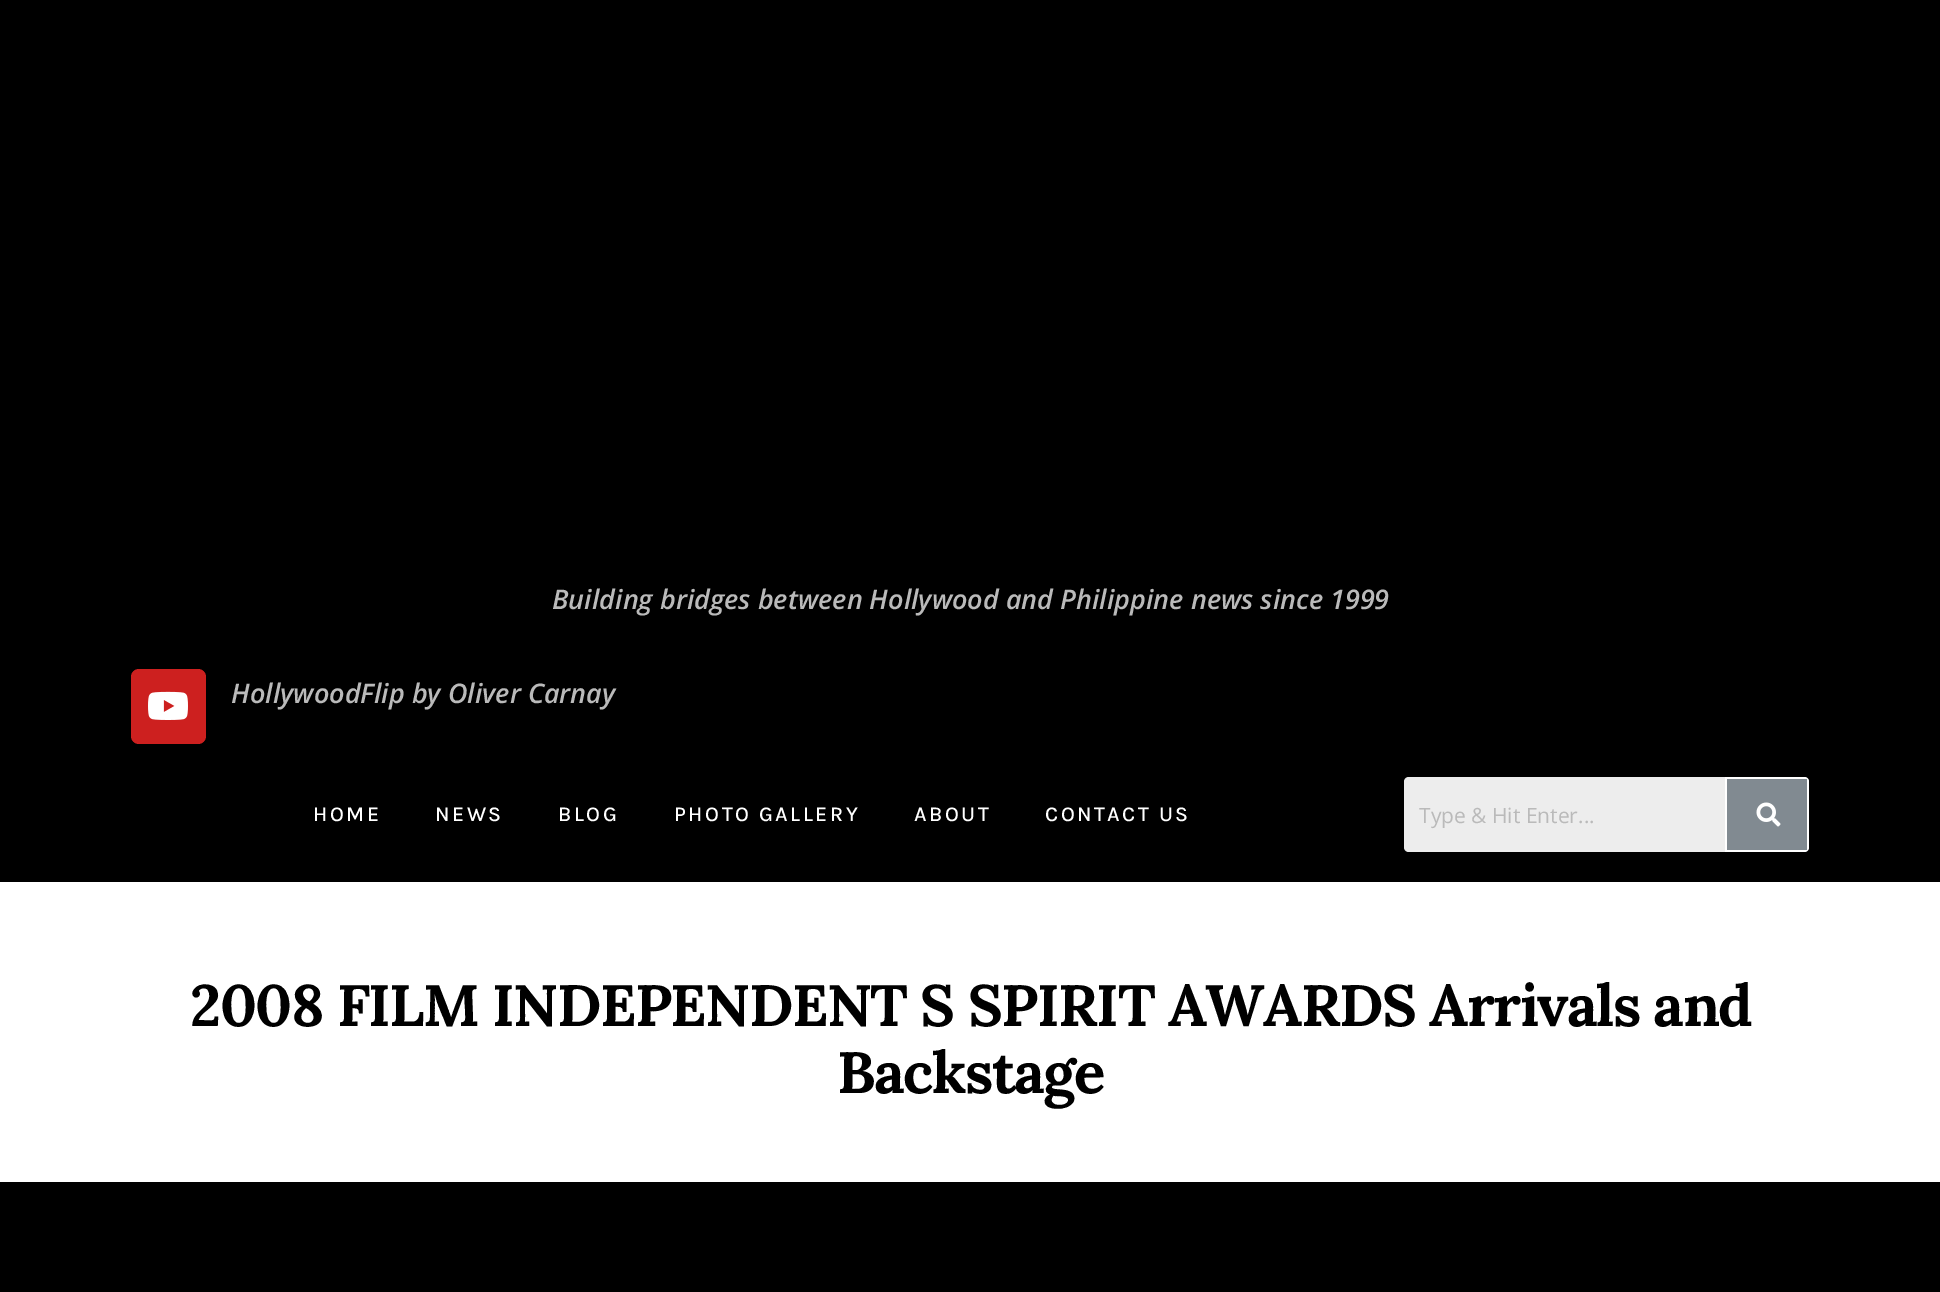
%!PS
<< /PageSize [1940 1292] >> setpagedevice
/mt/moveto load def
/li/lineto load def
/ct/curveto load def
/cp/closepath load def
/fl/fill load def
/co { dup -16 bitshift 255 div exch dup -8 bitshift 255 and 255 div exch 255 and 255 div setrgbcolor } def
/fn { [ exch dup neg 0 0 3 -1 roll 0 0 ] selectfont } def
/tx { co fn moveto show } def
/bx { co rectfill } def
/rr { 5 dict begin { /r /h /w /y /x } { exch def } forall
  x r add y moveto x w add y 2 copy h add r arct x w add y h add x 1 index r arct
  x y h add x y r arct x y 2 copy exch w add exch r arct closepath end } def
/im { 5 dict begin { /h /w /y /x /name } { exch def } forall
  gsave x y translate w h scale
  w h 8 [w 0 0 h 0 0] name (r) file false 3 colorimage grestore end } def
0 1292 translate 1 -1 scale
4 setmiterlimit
0 0 1940 1292 16#FFFFFF bx
0 0 1940 882 16#000000 bx
16#CD201F co
131 669 75 75 8 rr fl
(media/1.raw) 148 691 40 29 im
16#EDEDED co
1409 777 mt 1725 777 li 1725 852 li 1409 852 li 1406 852 1404 850 1404 847 ct 1404 782 li 1404 779 1406 777 1409 777 ct cp fl
16#818A91 co
1725 777 mt 1804 777 li 1807 777 1809 779 1809 782 ct 1809 847 li 1809 850 1807 852 1804 852 ct 1725 852 li cp fl
16#FFFFFF co
1725 777 mt 1725 852 li 1804 852 li 1807 852 1809 850 1809 847 ct 1809 782 li 1809 779 1807 777 1804 777 ct cp 1727 779 mt 1727 850 li 1807 850 li 1807 779 li cp eofill
(media/2.raw) 1756 802 25 25 im
0 1182 1940 110 16#000000 bx
(Building bridges between Hollywood and Philippine news since 1999) 552 609 /OpenSans-SemiBoldItalic 27 16#BABABA tx
(HollywoodFlip by Oliver Carnay) 231 703 /OpenSans-SemiBoldItalic 27 16#BABABA tx
/Karla-Medium 21 fn
16#FFFFFF co
313 821 mt 2.5 0 (HOME) ashow
435 821 mt 2.5 0 (NEWS) ashow
558 821 mt 2.5 0 (BLOG) ashow
674 821 mt 2.5 0 (PHOTO GALLERY) ashow
914 821 mt 2.5 0 (ABOUT) ashow
1045 821 mt 2.5 0 (CONTACT US) ashow
(Type & Hit Enter...) 1419 823 /OpenSans-Regular 21 16#BABABA tx
/Lora-Bold 58.35 fn
16#000000 co
190 1026 mt -1.5 0 (2008 FILM INDEPENDENT S SPIRIT AWARDS Arrivals and) ashow
837 1093 mt -1.5 0 (Backstage) ashow
showpage
